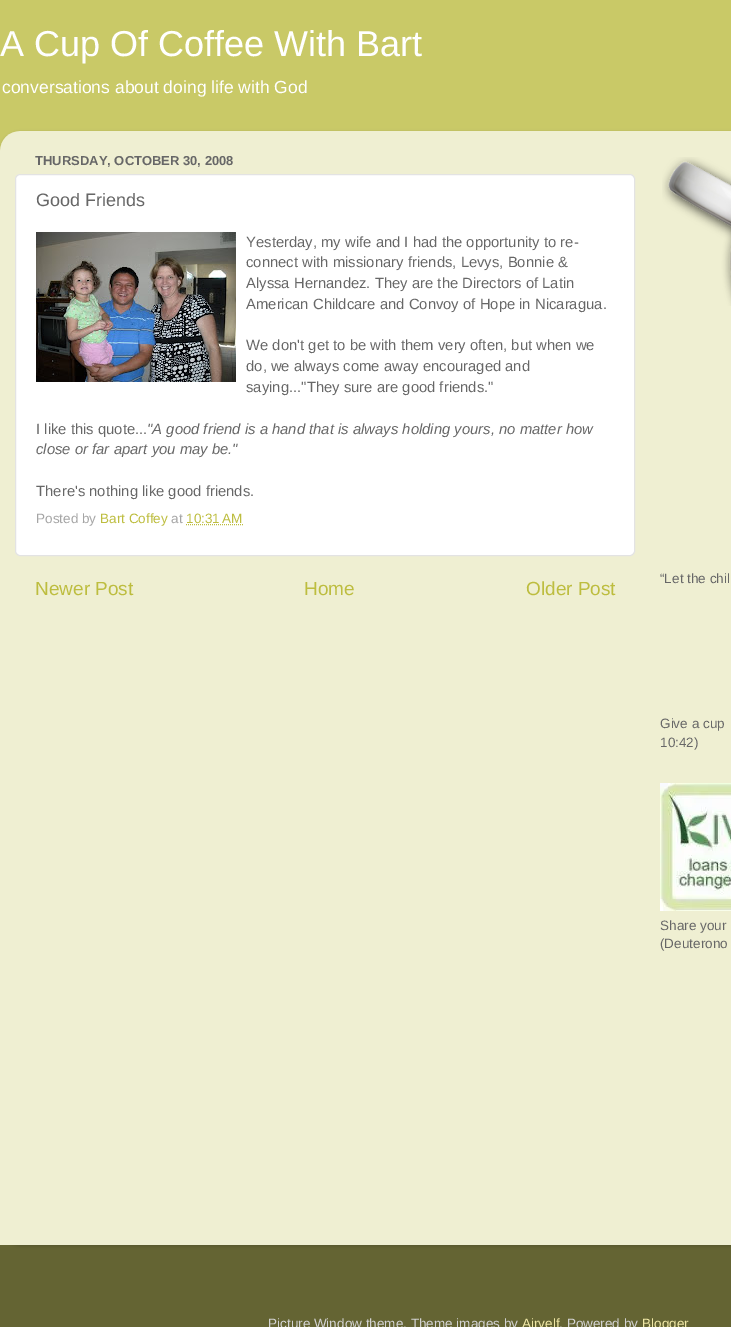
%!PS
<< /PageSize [731 1327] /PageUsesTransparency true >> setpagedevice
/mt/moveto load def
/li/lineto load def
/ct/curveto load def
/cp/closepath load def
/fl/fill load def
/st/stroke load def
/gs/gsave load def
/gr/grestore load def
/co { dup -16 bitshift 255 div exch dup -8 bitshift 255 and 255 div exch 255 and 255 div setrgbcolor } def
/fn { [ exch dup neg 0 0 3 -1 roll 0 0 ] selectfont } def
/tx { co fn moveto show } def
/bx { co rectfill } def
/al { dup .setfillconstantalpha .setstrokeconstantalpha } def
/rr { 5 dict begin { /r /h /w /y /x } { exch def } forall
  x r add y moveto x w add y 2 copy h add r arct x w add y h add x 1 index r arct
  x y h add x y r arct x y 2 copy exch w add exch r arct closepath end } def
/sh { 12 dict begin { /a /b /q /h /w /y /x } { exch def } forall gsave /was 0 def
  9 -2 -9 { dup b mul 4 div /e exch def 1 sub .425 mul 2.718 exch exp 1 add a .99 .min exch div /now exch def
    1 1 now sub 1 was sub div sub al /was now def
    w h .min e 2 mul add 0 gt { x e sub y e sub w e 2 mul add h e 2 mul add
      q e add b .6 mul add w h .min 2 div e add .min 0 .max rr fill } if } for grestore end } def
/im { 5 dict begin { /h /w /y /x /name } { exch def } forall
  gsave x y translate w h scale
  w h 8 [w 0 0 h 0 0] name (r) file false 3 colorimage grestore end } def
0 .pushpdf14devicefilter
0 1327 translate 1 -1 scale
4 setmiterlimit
0 0 731 1327 16#C9C967 bx
gs
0 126 mt 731 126 li 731 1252 li 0 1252 li cp 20 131 mt 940 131 li 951 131 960 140 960 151 ct 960 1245 li 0 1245 li 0 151 li 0 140 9 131 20 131 ct cp eoclip newpath
16#000000 co
0 132 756 1114 20 1.5 .15 sh
gr
(media/1.raw) 0 131 731 1114 im
16#FFFFFF co
15.5 174.5 619 381 4.5 rr gs fl gr
16#E3E3E3 co
st
(media/2.raw) 36 232 200 150 im
16#BDBD3F co
[1 1] 0 setdash
186 524.5 mt 243 524.5 li st
(media/3.raw) 662 157 69 149 im
(media/4.raw) 660 783 71 128 im
0.5 al
0 1245 731 82 16#000000 bx
1 al
(A Cup Of Coffee With Bart) 0 56 /LiberationSans-Regular 36 16#FFFFFF tx
(conversations about doing life with God) 2 93 /LiberationSans-Regular 17.5 16#FFFFFF tx
(THURSDAY, OCTOBER 30, 2008) 35 165 /LiberationSans-Bold 13 16#676767 tx
(Good Friends) 36 206 /LiberationSans-Regular 18 16#676767 tx
(Yesterday, my wife and I had the opportunity to re-) 246 247 /LiberationSans-Regular 14.85 16#676767 tx
(connect with missionary friends, Levys, Bonnie &) 246 267 /LiberationSans-Regular 14.85 16#676767 tx
(Alyssa Hernandez. They are the Directors of Latin) 246 288 /LiberationSans-Regular 14.85 16#676767 tx
(American Childcare and Convoy of Hope in Nicaragua.) 246 309 /LiberationSans-Regular 14.85 16#676767 tx
(We don't get to be with them very often, but when we) 246 350 /LiberationSans-Regular 14.85 16#676767 tx
(do, we always come away encouraged and) 246 371 /LiberationSans-Regular 14.85 16#676767 tx
(saying..."They sure are good friends.") 246 392 /LiberationSans-Regular 14.85 16#676767 tx
(I like this quote...) 36 434 /LiberationSans-Regular 14.85 16#676767 tx
("A good friend is a hand that is always holding yours, no matter how) 147 434 /LiberationSans-Italic 14.85 16#676767 tx
(close or far apart you may be.") 36 454 /LiberationSans-Italic 14.85 16#676767 tx
(There's nothing like good friends.) 36 496 /LiberationSans-Regular 14.85 16#676767 tx
(Posted by) 36 523 /LiberationSans-Regular 13.5 16#A5A5A5 tx
(Bart Coffey) 100 523 /LiberationSans-Regular 13.5 16#BDBD3F tx
(at) 171 523 /LiberationSans-Regular 13.5 16#A5A5A5 tx
(10:31 AM) 186 523 /LiberationSans-Regular 13.5 16#BDBD3F tx
(Newer Post) 35 595 /LiberationSans-Regular 19 16#BDBD3F tx
(Home) 304 595 /LiberationSans-Regular 19 16#BDBD3F tx
(Older Post) 526 595 /LiberationSans-Regular 19 16#BDBD3F tx
(“Let the chil) 660 583 /LiberationSans-Regular 13.5 16#676767 tx
(Give a cup) 660 728 /LiberationSans-Regular 13.5 16#676767 tx
(10:42\)) 660 747 /LiberationSans-Regular 13.5 16#676767 tx
(Share your) 660 930 /LiberationSans-Regular 13.5 16#676767 tx
(\(Deuterono) 660 948 /LiberationSans-Regular 13.5 16#676767 tx
(Picture Window theme. Theme images by) 268 1328 /LiberationSans-Regular 13.5 16#D3D3D3 tx
(Airyelf) 522 1328 /LiberationSans-Regular 13.5 16#F0E8A6 tx
(. Powered by) 559 1328 /LiberationSans-Regular 13.5 16#D3D3D3 tx
(Blogger) 642 1328 /LiberationSans-Regular 13.5 16#F0E8A6 tx
.poppdf14devicefilter showpage
